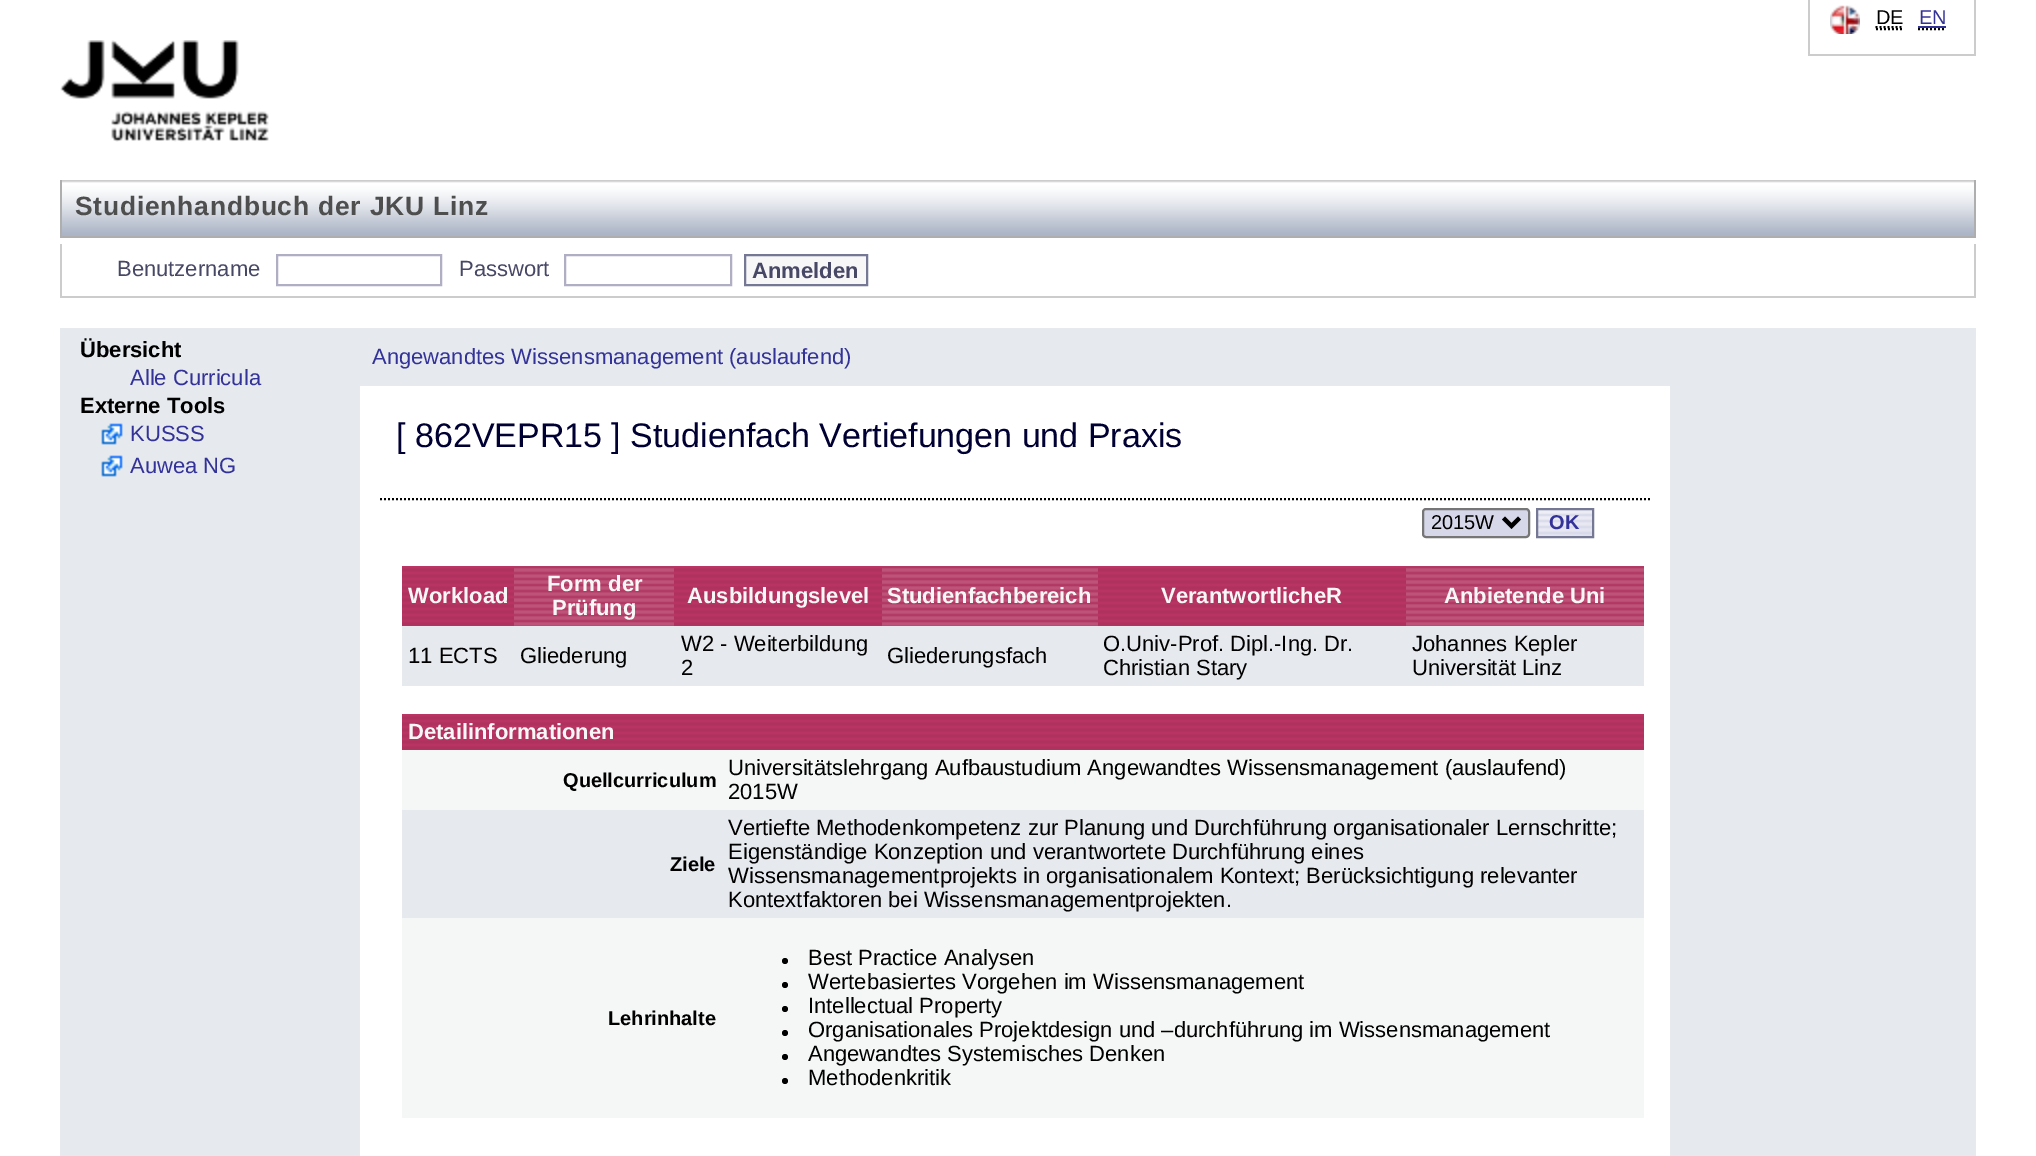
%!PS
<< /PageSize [2036 1156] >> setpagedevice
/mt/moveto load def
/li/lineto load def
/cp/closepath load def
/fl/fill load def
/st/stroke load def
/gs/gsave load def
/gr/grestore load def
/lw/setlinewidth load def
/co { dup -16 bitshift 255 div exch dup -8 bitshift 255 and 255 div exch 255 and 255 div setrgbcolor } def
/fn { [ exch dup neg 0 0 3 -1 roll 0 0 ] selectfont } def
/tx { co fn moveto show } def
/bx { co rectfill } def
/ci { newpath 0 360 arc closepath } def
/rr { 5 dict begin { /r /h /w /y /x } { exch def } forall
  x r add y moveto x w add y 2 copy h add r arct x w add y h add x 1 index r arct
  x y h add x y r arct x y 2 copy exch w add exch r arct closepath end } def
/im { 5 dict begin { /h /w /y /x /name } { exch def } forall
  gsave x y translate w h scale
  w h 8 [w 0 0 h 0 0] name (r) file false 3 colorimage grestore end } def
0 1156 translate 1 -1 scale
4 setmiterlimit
0 0 2036 1156 16#FFFFFF bx
1974 0 2 56 16#CCCCCC bx
1808 54 168 2 16#CCCCCC bx
1808 0 2 56 16#CCCCCC bx
(media/1.raw) 1830 5 30 29 im
16#000000 co
2 lw
[2 2] 0 setdash
1876 29 mt 1902 29 li 1875.5 27 mt 1903 27 li st
1918 29 mt 1946 29 li st
1918 26 28 2 16#333298 bx
(media/2.raw) 60 40 209 102 im
(media/3.raw) 62 180 1912 56 im
1974 180 2 58 16#AEAEAE bx
60 236 1916 2 16#AEAEAE bx
60 180 2 58 16#AEAEAE bx
1974 244 2 54 16#CCCCCC bx
60 296 1916 2 16#CCCCCC bx
60 244 2 54 16#CCCCCC bx
16#B0AEC3 co
[] 0 setdash
277 255 164 30 rectstroke
565 255 166 30 rectstroke
16#F7F7F7 co
745 255 mt 867 255 li 867 285 li 745 285 li cp gs fl gr
16#747895 co
st
60 328 300 828 16#E6E9EE bx
(media/4.raw) 101 423 22 22 im
(media/4.raw) 101 455 22 22 im
360 328 1616 58 16#E6E9EE bx
1670 384 2 772 16#E6E9EE bx
16#000000 co
[2 2] 0 setdash
380 499 mt 1650 499 li st
16#D6D7E9 co
1423 509 106 28 3 rr gs fl gr
16#767676 co
[] 0 setdash
st
16#000000 co
4 lw
1503.5 518 mt 1511.5 526 li 1519.5 518 li st
(media/5.raw) 1538 510 54 26 im
16#747895 co
2 lw
1537 509 56 28 rectstroke
(media/6.raw) 402 566 112 60 im
(media/7.raw) 514 566 160 60 im
(media/8.raw) 674 566 208 60 im
(media/9.raw) 882 566 216 60 im
(media/10.raw) 1098 566 308 60 im
(media/11.raw) 1406 566 238 60 im
402 626 1242 60 16#E6E9ED bx
(media/12.raw) 402 714 1242 36 im
402 750 1242 60 16#F5F7F7 bx
402 810 1242 108 16#E6E9ED bx
402 918 1242 200 16#F5F7F7 bx
16#000000 co
785 961 3 ci fl
785 985 3 ci fl
785 1009 3 ci fl
785 1033 3 ci fl
785 1057 3 ci fl
785 1081 3 ci fl
1672 386 304 770 16#E6E9EE bx
(DE) 1876 24 /LiberationSans-Regular 20 16#000000 tx
(EN) 1919 24 /LiberationSans-Regular 20 16#333298 tx
/LiberationSans-Bold 26.4 fn
16#4E4E4E co
75 215 mt .8 0 (Studienhandbuch der JKU Linz) ashow
(Benutzername) 117 276 /LiberationSans-Regular 22 16#474766 tx
(Passwort) 459 276 /LiberationSans-Regular 22 16#474766 tx
(Anmelden) 752 278 /LiberationSans-Bold 22 16#474766 tx
(Übersicht) 80 357 /LiberationSans-Bold 22 16#000000 tx
(Alle Curricula) 130 385 /LiberationSans-Regular 22 16#333298 tx
(Externe Tools) 80 413 /LiberationSans-Bold 22 16#000000 tx
(KUSSS) 130 441 /LiberationSans-Regular 22 16#333298 tx
(Auwea NG) 130 473 /LiberationSans-Regular 22 16#333298 tx
(Angewandtes Wissensmanagement \(auslaufend\)) 372 364 /LiberationSans-Regular 22 16#333298 tx
([ 862VEPR15 ] Studienfach Vertiefungen und Praxis) 396 447 /LiberationSans-Regular 34 16#000033 tx
(2015W) 1431 529 /LiberationSans-Regular 20 16#000000 tx
(OK) 1549 529 /LiberationSans-Bold 20 16#333298 tx
(Workload) 408 603 /LiberationSans-Bold 22 16#F7F7F7 tx
(Form der) 547 591 /LiberationSans-Bold 22 16#F7F7F7 tx
(Prüfung) 552 615 /LiberationSans-Bold 22 16#F7F7F7 tx
(Ausbildungslevel) 687 603 /LiberationSans-Bold 22 16#F7F7F7 tx
(Studienfachbereich) 887 603 /LiberationSans-Bold 22 16#F7F7F7 tx
(VerantwortlicheR) 1161 603 /LiberationSans-Bold 22 16#F7F7F7 tx
(Anbietende Uni) 1444 603 /LiberationSans-Bold 22 16#F7F7F7 tx
(11 ECTS) 408 663 /LiberationSans-Regular 22 16#000000 tx
(Gliederung) 520 663 /LiberationSans-Regular 22 16#000000 tx
(W2 - Weiterbildung) 681 651 /LiberationSans-Regular 22 16#000000 tx
(2) 681 675 /LiberationSans-Regular 22 16#000000 tx
(Gliederungsfach) 887 663 /LiberationSans-Regular 22 16#000000 tx
(O.Univ-Prof. Dipl.-Ing. Dr.) 1103 651 /LiberationSans-Regular 22 16#000000 tx
(Christian Stary) 1103 675 /LiberationSans-Regular 22 16#000000 tx
(Johannes Kepler) 1412 651 /LiberationSans-Regular 22 16#000000 tx
(Universität Linz) 1412 675 /LiberationSans-Regular 22 16#000000 tx
(Detailinformationen) 408 739 /LiberationSans-Bold 22 16#F7F7F7 tx
(Quellcurriculum) 563 787 /LiberationSans-Bold 20 16#000000 tx
(Universitätslehrgang Aufbaustudium Angewandtes Wissensmanagement \(auslaufend\)) 728 775 /LiberationSans-Regular 22 16#000000 tx
(2015W) 728 799 /LiberationSans-Regular 22 16#000000 tx
(Ziele) 670 871 /LiberationSans-Bold 20 16#000000 tx
(Vertiefte Methodenkompetenz zur Planung und Durchführung organisationaler Lernschritte;) 728 835 /LiberationSans-Regular 22 16#000000 tx
(Eigenständige Konzeption und verantwortete Durchführung eines) 728 859 /LiberationSans-Regular 22 16#000000 tx
(Wissensmanagementprojekts in organisationalem Kontext; Berücksichtigung relevanter) 728 883 /LiberationSans-Regular 22 16#000000 tx
(Kontextfaktoren bei Wissensmanagementprojekten.) 728 907 /LiberationSans-Regular 22 16#000000 tx
(Lehrinhalte) 608 1025 /LiberationSans-Bold 20 16#000000 tx
(Best Practice Analysen) 808 965 /LiberationSans-Regular 22 16#000000 tx
(Wertebasiertes Vorgehen im Wissensmanagement) 808 989 /LiberationSans-Regular 22 16#000000 tx
(Intellectual Property) 808 1013 /LiberationSans-Regular 22 16#000000 tx
(Organisationales Projektdesign und –durchführung im Wissensmanagement) 808 1037 /LiberationSans-Regular 22 16#000000 tx
(Angewandtes Systemisches Denken) 808 1061 /LiberationSans-Regular 22 16#000000 tx
(Methodenkritik) 808 1085 /LiberationSans-Regular 22 16#000000 tx
showpage
